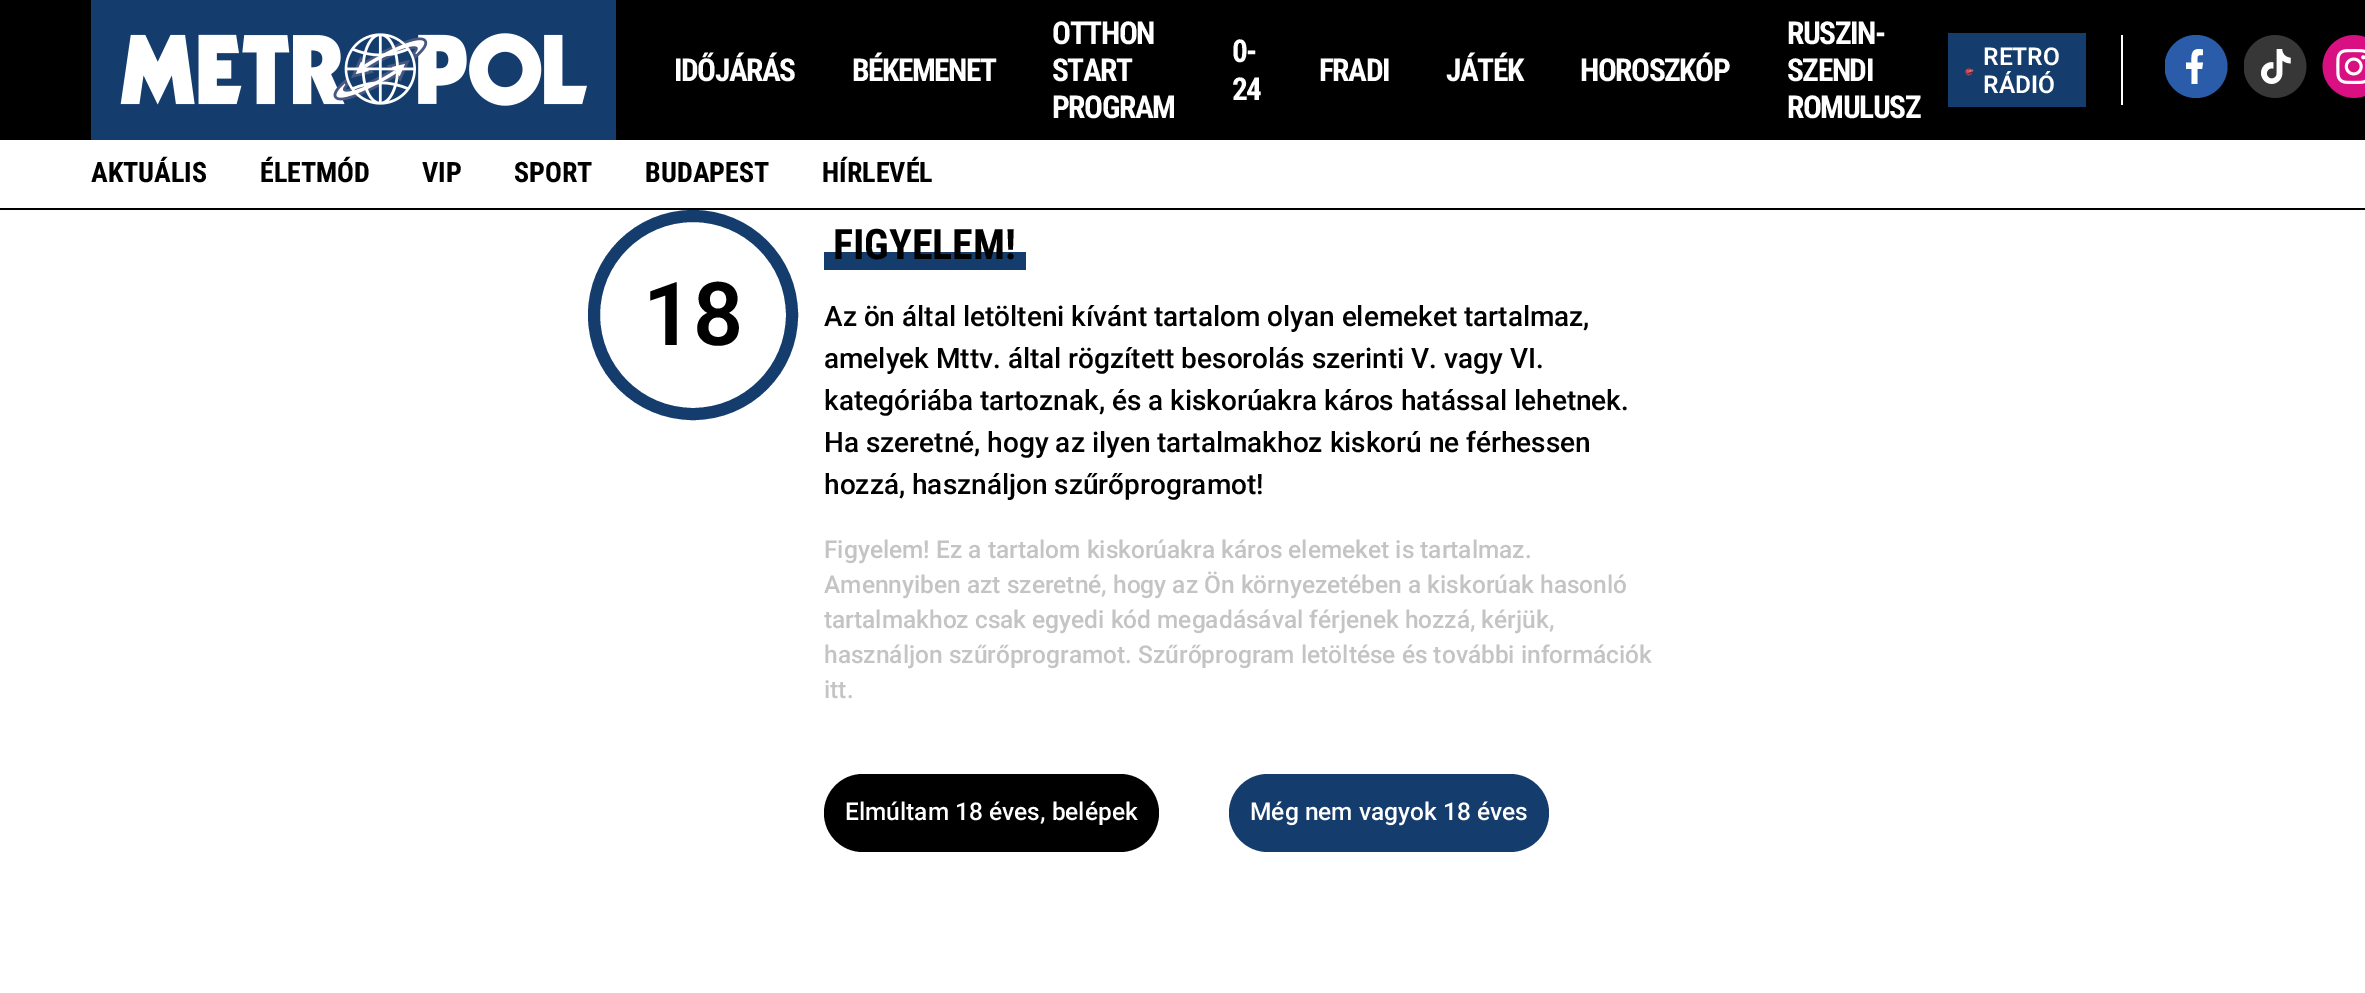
%!PS
<< /PageSize [2365 993] >> setpagedevice
/mt/moveto load def
/li/lineto load def
/ct/curveto load def
/cp/closepath load def
/fl/fill load def
/st/stroke load def
/gs/gsave load def
/gr/grestore load def
/lw/setlinewidth load def
/co { dup -16 bitshift 255 div exch dup -8 bitshift 255 and 255 div exch 255 and 255 div setrgbcolor } def
/fn { [ exch dup neg 0 0 3 -1 roll 0 0 ] selectfont } def
/tx { co fn moveto show } def
/bx { co rectfill } def
/ci { newpath 0 360 arc closepath } def
/rr { 5 dict begin { /r /h /w /y /x } { exch def } forall
  x r add y moveto x w add y 2 copy h add r arct x w add y h add x 1 index r arct
  x y h add x y r arct x y 2 copy exch w add exch r arct closepath end } def
/im { 5 dict begin { /h /w /y /x /name } { exch def } forall
  gsave x y translate w h scale
  w h 8 [w 0 0 h 0 0] name (r) file false 3 colorimage grestore end } def
0 993 translate 1 -1 scale
4 setmiterlimit
0 0 2365 993 16#FFFFFF bx
0 0 2365 140 16#000000 bx
(media/1.raw) 91 0 525 140 im
1948 33 138 74 16#143C6D bx
(media/2.raw) 1965 68 9 8 im
2121 35 2 70 16#FFFFFF bx
gs
2165 35 63 63 rectclip
16#2A5CAA co
2196 66.5 31.5 ci fl
gr
2199 49 mt 2190.5 49 2191.5 57 2191.5 62.5 ct 2186 62.5 li 2186 69 li 2191.5 69 li 2191.5 84 li 2197.5 84 li 2197.5 69 li 2202 69 li 2203 62.5 li 2197.5 62.5 li 2197.5 56 2196 55 2203 55 ct 2203 49.5 li cp fl
(media/3.raw) 2244 35 63 63 im
(media/4.raw) 2322 35 43 63 im
0 208 2365 2 16#000000 bx
16#143C6D co
12 lw
693 315 99 ci st
824 252 202 18 16#143C6D bx
16#000000 co
824 774 335 78 39 rr fl
16#143C6D co
1229 774 320 78 39 rr fl
/RobotoCondensed-Bold 31.5 fn
16#FFFFFF co
674 81 mt -1.5 0 (IDŐJÁRÁS) ashow
852 81 mt -1.5 0 (BÉKEMENET) ashow
1052 44 mt -1.5 0 (OTTHON) ashow
1052 81 mt -1.5 0 (START) ashow
1052 118 mt -1.5 0 (PROGRAM) ashow
1232 62 mt -1.5 0 (0-) ashow
1232 100 mt -1.5 0 (24) ashow
1319 81 mt -1.5 0 (FRADI) ashow
1446 81 mt -1.5 0 (JÁTÉK) ashow
1580 81 mt -1.5 0 (HOROSZKÓP) ashow
1787 44 mt -1.5 0 (RUSZIN-) ashow
1787 81 mt -1.5 0 (SZENDI) ashow
1787 118 mt -1.5 0 (ROMULUSZ) ashow
(RETRO) 1983 65 /Roboto-SemiBold 24.5 16#FFFFFF tx
(RÁDIÓ) 1983 93 /Roboto-SemiBold 24.5 16#FFFFFF tx
(AKTUÁLIS) 91 182 /RobotoCondensed-Bold 28 16#000000 tx
(ÉLETMÓD) 260 182 /RobotoCondensed-Bold 28 16#000000 tx
(VIP) 422 182 /RobotoCondensed-Bold 28 16#000000 tx
(SPORT) 514 182 /RobotoCondensed-Bold 28 16#000000 tx
(BUDAPEST) 645 182 /RobotoCondensed-Bold 28 16#000000 tx
(HÍRLEVÉL) 822 182 /RobotoCondensed-Bold 28 16#000000 tx
(18) 643 345 /Roboto-SemiBold 88 16#000000 tx
(FIGYELEM!) 833 259 /RobotoCondensed-Bold 42 16#000000 tx
(Az ön által letölteni kívánt tartalom olyan elemeket tartalmaz,) 824 326 /Roboto-Medium 28 16#000000 tx
(amelyek Mttv. által rögzített besorolás szerinti V. vagy VI.) 824 368 /Roboto-Medium 28 16#000000 tx
(kategóriába tartoznak, és a kiskorúakra káros hatással lehetnek.) 824 410 /Roboto-Medium 28 16#000000 tx
(Ha szeretné, hogy az ilyen tartalmakhoz kiskorú ne férhessen) 824 452 /Roboto-Medium 28 16#000000 tx
(hozzá, használjon szűrőprogramot!) 824 494 /Roboto-Medium 28 16#000000 tx
(Figyelem! Ez a tartalom kiskorúakra káros elemeket is tartalmaz.) 824 558 /Roboto-Medium 24.5 16#C4C4C4 tx
(Amennyiben azt szeretné, hogy az Ön környezetében a kiskorúak hasonló) 824 593 /Roboto-Medium 24.5 16#C4C4C4 tx
(tartalmakhoz csak egyedi kód megadásával férjenek hozzá, kérjük,) 824 628 /Roboto-Medium 24.5 16#C4C4C4 tx
(használjon szűrőprogramot. Szűrőprogram letöltése és további információk) 824 663 /Roboto-Medium 24.5 16#C4C4C4 tx
(itt.) 824 698 /Roboto-Medium 24.5 16#C4C4C4 tx
(Elmúltam 18 éves, belépek) 845 820 /Roboto-Medium 24.5 16#FFFFFF tx
(Még nem vagyok 18 éves) 1250 820 /Roboto-Medium 24.5 16#FFFFFF tx
showpage
